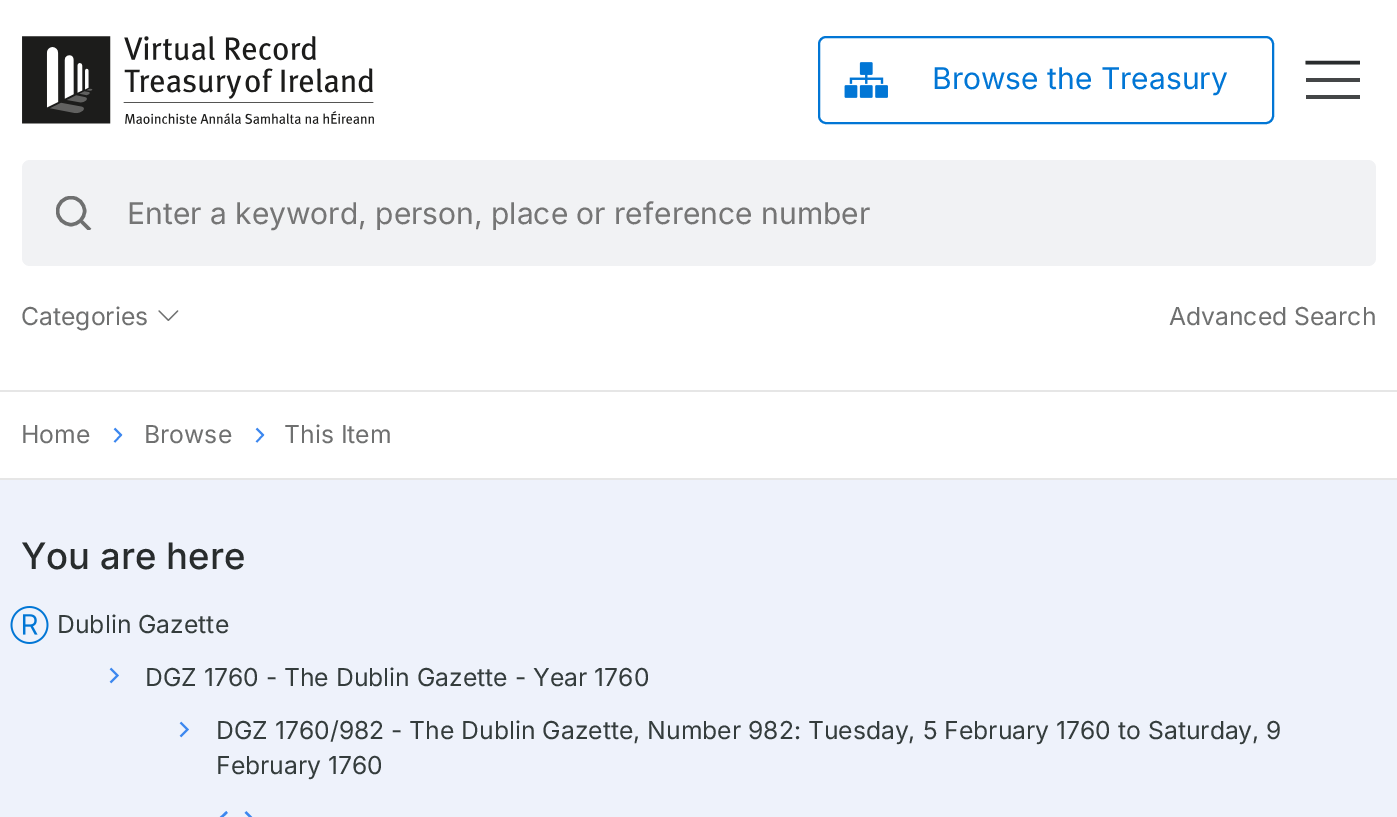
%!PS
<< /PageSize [1397 817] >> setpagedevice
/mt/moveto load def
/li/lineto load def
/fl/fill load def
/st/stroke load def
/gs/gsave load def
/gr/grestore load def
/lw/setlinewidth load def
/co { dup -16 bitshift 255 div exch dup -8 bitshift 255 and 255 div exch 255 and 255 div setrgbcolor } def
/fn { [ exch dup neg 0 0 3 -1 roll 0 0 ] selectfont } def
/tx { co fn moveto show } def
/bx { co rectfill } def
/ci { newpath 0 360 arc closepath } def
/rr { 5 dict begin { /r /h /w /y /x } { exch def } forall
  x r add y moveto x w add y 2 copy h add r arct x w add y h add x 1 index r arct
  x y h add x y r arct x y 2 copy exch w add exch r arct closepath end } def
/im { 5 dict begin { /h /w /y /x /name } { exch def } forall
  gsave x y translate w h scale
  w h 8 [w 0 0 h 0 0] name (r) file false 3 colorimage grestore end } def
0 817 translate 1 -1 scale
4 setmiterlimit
0 0 1397 817 16#FFFFFF bx
(media/1.raw) 22 36 352 88 im
16#0176D5 co
2 lw
819 37 454 86 7 rr st
(media/2.raw) 844 62 44 36 im
16#292C2D co
3.5 lw
1305.5 62.5 mt 1360 62.5 li st
1306 78 54 4 16#444647 bx
1306 95 54 4 16#444647 bx
16#F1F2F4 co
22 160 1354 106 8 rr fl
gs
56 196 36 34 rectclip
16#6F7070 co
3.4 lw
71 211 13.5 ci st
81.5 221.5 mt 90 230 li st
gr
(media/3.raw) 158 310 21 11 im
0 390 1397 2 16#E6E6E6 bx
0 478 1397 2 16#E6E6E6 bx
16#3C87EF co
1.8 lw
114.5 428.5 mt 121 435 li 114.5 442 li st
256.5 428.5 mt 263 435 li 256.5 442 li st
0 480 1397 337 16#EEF2FB bx
(media/4.raw) 10 606 39 38 im
16#3C87EF co
110.5 668.5 mt 117.5 675.5 li 110.5 682.5 li st
180.5 722.5 mt 187.5 729.5 li 180.5 736.5 li st
2.4 lw
227 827.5 mt 219 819.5 li 227 812 li 245.5 812 mt 253.5 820 li 245.5 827.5 li st
(Browse the Treasury) 932 89 /Inter-Regular 30 16#0176D5 tx
(Enter a keyword, person, place or reference number) 127 224 /Inter-Regular 30 16#757575 tx
(Categories) 21 325 /Inter-Regular 24.7 16#6F7070 tx
(Advanced Search) 1169 325 /Inter-Regular 24.7 16#6F7070 tx
(Home) 21 443 /Inter-Regular 24.7 16#6F7070 tx
(Browse) 144 443 /Inter-Regular 24.7 16#6F7070 tx
(This Item) 284 443 /Inter-Regular 24.7 16#6F7070 tx
(You are here) 21 569 /Inter-Medium 36.5 16#282C2D tx
(Dublin Gazette) 57 633 /Inter-Regular 24.7 16#343C3C tx
(DGZ 1760 - The Dublin Gazette - Year 1760) 145 686 /Inter-Regular 24.7 16#343C3C tx
(DGZ 1760/982 - The Dublin Gazette, Number 982: Tuesday, 5 February 1760 to Saturday, 9) 216 739 /Inter-Regular 24.7 16#343C3C tx
(February 1760) 216 774 /Inter-Regular 24.7 16#343C3C tx
showpage
